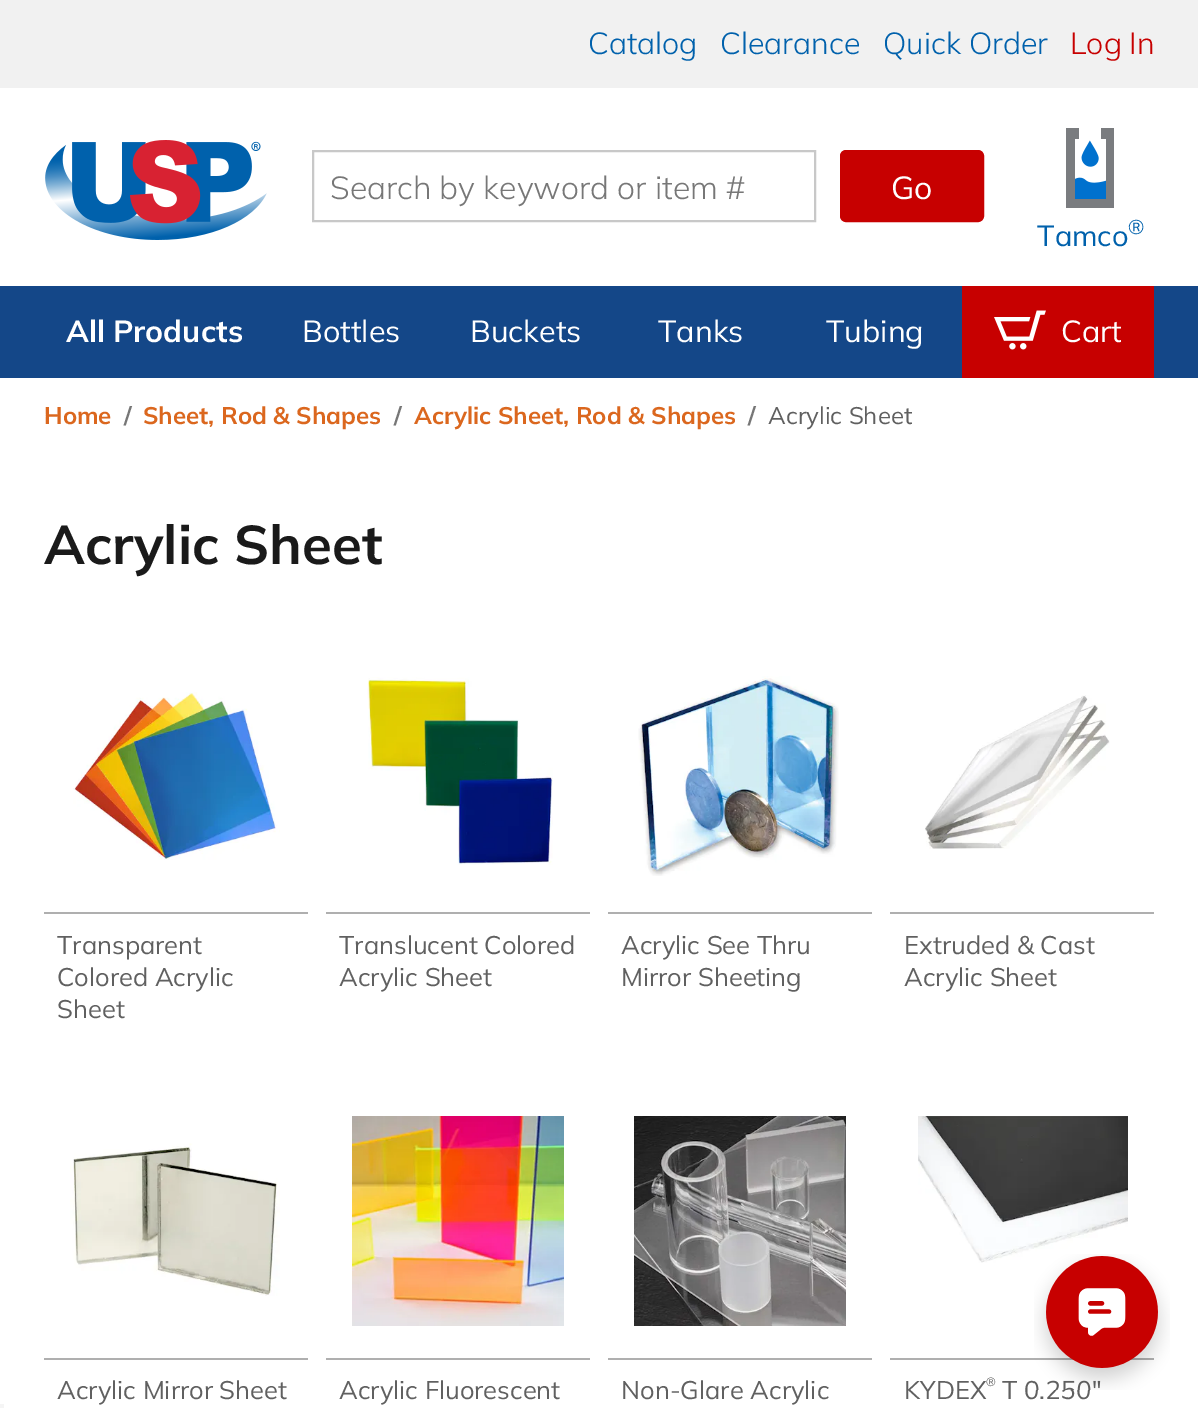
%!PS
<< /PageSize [1198 1408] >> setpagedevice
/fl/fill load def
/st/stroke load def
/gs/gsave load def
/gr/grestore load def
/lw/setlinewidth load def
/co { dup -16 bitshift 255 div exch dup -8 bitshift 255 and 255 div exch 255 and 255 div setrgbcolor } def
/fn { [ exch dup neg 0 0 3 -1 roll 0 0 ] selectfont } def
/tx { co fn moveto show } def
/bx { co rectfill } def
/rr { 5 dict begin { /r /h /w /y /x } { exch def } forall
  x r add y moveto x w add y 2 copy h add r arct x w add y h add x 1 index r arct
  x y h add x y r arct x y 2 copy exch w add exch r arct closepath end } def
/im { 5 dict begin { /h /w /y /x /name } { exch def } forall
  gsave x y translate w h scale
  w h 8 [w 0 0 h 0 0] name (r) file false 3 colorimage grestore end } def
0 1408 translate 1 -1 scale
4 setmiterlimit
0 0 1198 1408 16#FFFFFF bx
0 0 1198 88 16#F1F1F1 bx
(media/1.raw) 45 140 222 100 im
16#C8C8C8 co
2 lw
313 151 502 70 rectstroke
16#C70000 co
841 151 142 70 5 rr gs fl gr
st
(media/2.raw) 1066 128 48 80 im
0 286 1198 92 16#144788 bx
962 286 192 92 16#C70000 bx
(media/3.raw) 994 310 52 40 im
(media/4.raw) 73 692 207 168 im
44 912 264 2 16#AFAFAF bx
(media/5.raw) 367 677 186 188 im
326 912 264 2 16#AFAFAF bx
(media/6.raw) 638 676 201 200 im
608 912 264 2 16#AFAFAF bx
(media/7.raw) 925 695 185 154 im
890 912 264 2 16#AFAFAF bx
(media/8.raw) 70 1143 210 153 im
44 1358 264 2 16#AFAFAF bx
(media/9.raw) 352 1116 212 210 im
326 1358 264 2 16#AFAFAF bx
(media/10.raw) 634 1116 212 210 im
608 1358 264 2 16#AFAFAF bx
(media/11.raw) 918 1116 210 147 im
890 1358 264 2 16#AFAFAF bx
0 1404 4 4 16#F5F5F5 bx
(Catalog) 588 54 /Mulish-Light 30.5 16#0061AC tx
(Clearance) 720 54 /Mulish-Light 30.5 16#0061AC tx
(Quick Order) 883 54 /Mulish-Light 30.5 16#0061AC tx
(Log In) 1070 54 /Mulish-Light 30.5 16#C70000 tx
(Search by keyword or item #) 330 199 /Mulish-Light 32 16#777777 tx
(Go) 891 199 /Mulish-Regular 32 16#FFFFFF tx
(Tamco) 1037 246 /Mulish-Regular 29 16#0061AC tx
(®) 1128 234 /Mulish-Regular 20 16#0061AC tx
(All Products) 66 342 /Mulish-Bold 30.5 16#FFFFFF tx
(Bottles) 302 342 /Mulish-Regular 30.5 16#FFFFFF tx
(Buckets) 470 342 /Mulish-Regular 30.5 16#FFFFFF tx
(Tanks) 658 342 /Mulish-Regular 30.5 16#FFFFFF tx
(Tubing) 826 342 /Mulish-Regular 30.5 16#FFFFFF tx
(Cart) 1061 342 /Mulish-Regular 30.5 16#FFFFFF tx
(Home) 44 424 /Mulish-Bold 24 16#DB671E tx
(/) 124 424 /Mulish-Bold 24 16#777777 tx
(Sheet, Rod & Shapes) 143 424 /Mulish-Bold 24 16#DB671E tx
(/) 394 424 /Mulish-Bold 24 16#777777 tx
(Acrylic Sheet, Rod & Shapes) 414 424 /Mulish-Bold 24 16#DB671E tx
(/) 748 424 /Mulish-Bold 24 16#777777 tx
(Acrylic Sheet) 768 424 /Mulish-Regular 24 16#606060 tx
(Acrylic Sheet) 44 564 /Mulish-Bold 54.5 16#1A1A1A tx
(Transparent) 57 954 /Mulish-Regular 25.5 16#606060 tx
(Colored Acrylic) 57 986 /Mulish-Regular 25.5 16#606060 tx
(Sheet) 57 1018 /Mulish-Regular 25.5 16#606060 tx
(Translucent Colored) 339 954 /Mulish-Regular 25.5 16#606060 tx
(Acrylic Sheet) 339 986 /Mulish-Regular 25.5 16#606060 tx
(Acrylic See Thru) 621 954 /Mulish-Regular 25.5 16#606060 tx
(Mirror Sheeting) 621 986 /Mulish-Regular 25.5 16#606060 tx
(Extruded & Cast) 904 954 /Mulish-Regular 25.5 16#606060 tx
(Acrylic Sheet) 904 986 /Mulish-Regular 25.5 16#606060 tx
(Acrylic Mirror Sheet) 57 1399 /Mulish-Regular 25.5 16#606060 tx
(Acrylic Fluorescent) 339 1399 /Mulish-Regular 25.5 16#606060 tx
(Non-Glare Acrylic) 621 1399 /Mulish-Regular 25.5 16#606060 tx
(KYDEX) 904 1399 /Mulish-Regular 25.5 16#606060 tx
(®) 986 1386 /Mulish-Regular 12 16#606060 tx
(T 0.250") 1002 1399 /Mulish-Regular 25.5 16#606060 tx
(media/12.raw) 1034 1254 136 136 im
showpage
